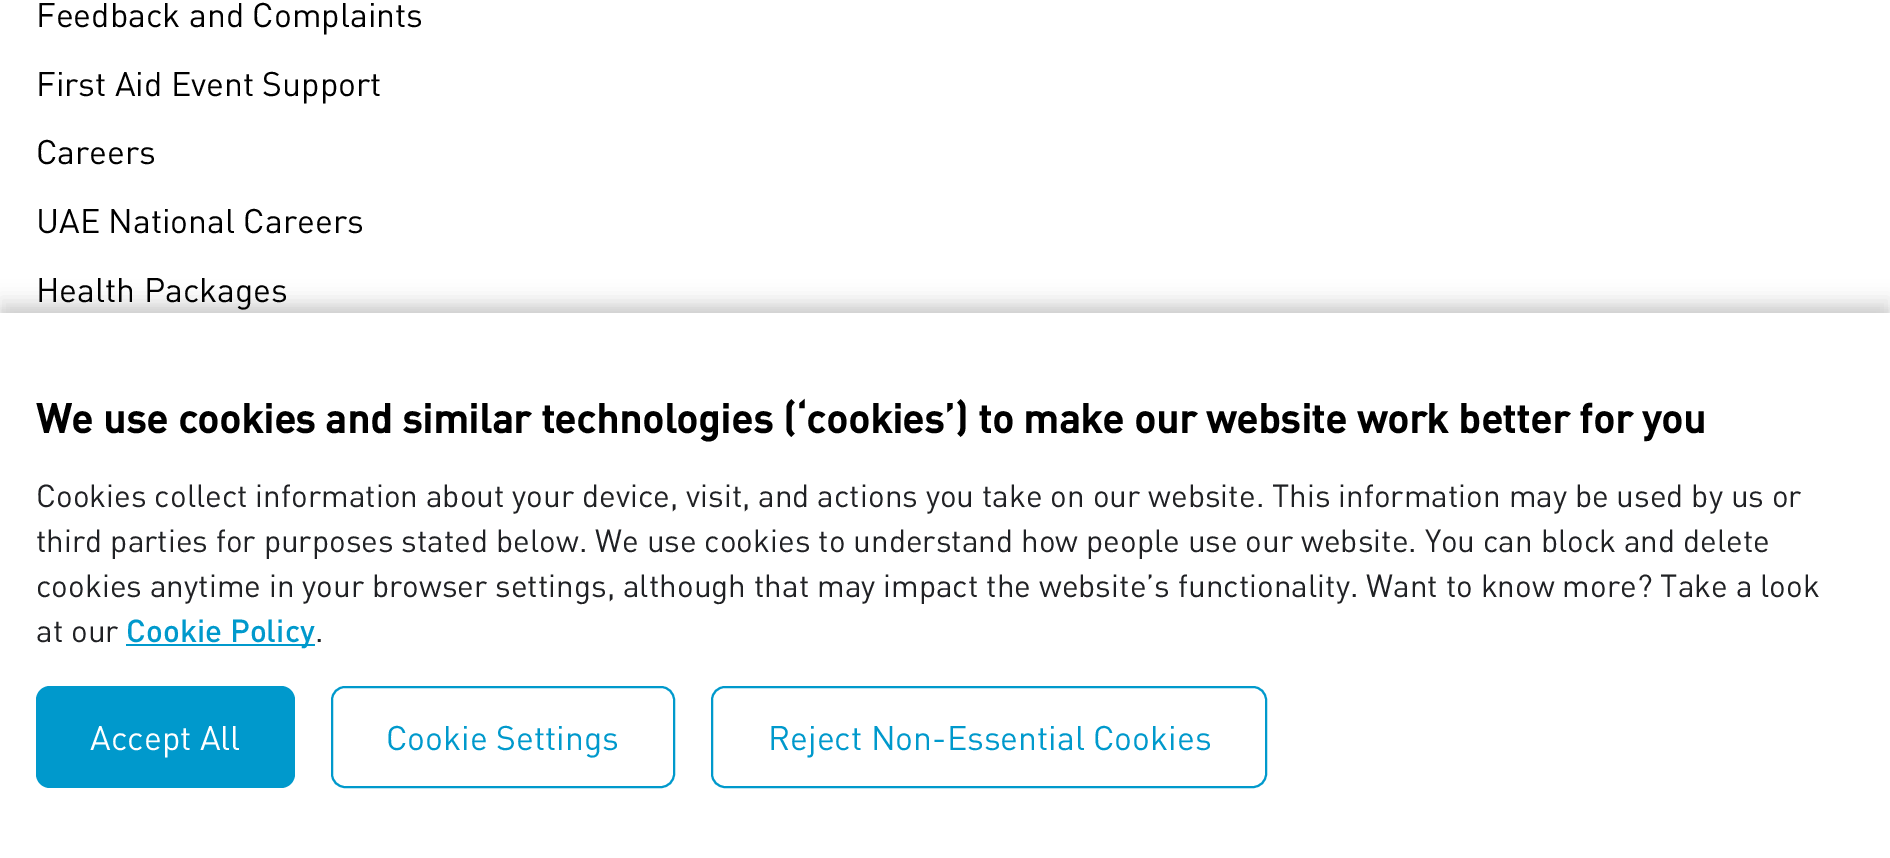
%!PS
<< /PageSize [1890 858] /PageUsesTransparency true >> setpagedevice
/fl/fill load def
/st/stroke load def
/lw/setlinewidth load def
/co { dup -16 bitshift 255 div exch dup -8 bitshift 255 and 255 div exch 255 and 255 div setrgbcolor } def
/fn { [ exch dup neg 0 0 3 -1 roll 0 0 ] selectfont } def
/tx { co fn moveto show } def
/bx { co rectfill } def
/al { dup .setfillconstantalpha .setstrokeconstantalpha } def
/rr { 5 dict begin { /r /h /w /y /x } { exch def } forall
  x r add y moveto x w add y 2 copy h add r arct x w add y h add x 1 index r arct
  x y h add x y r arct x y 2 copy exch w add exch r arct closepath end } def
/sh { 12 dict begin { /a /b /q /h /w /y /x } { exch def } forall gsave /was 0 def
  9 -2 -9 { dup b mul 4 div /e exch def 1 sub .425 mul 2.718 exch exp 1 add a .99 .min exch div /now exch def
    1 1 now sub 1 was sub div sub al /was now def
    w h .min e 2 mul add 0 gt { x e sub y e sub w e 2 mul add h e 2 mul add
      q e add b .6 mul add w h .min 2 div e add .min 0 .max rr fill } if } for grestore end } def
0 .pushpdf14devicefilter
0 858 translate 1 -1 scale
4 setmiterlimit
0 0 1890 858 16#FFFFFF bx
16#000000 co
0 308 1890 547 0 4.5 .1 sh
0 297 1890 547 0 8 .09 sh
0 313 1890 545 16#FFFFFF bx
126 644 189 2 16#0099CC bx
36 686 259 102 14 rr fl
2 lw
332 687 342 100 13 rr st
712 687 554 100 13 rr st
(Feedback and Complaints) 36 27 /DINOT-Regular 33.75 16#000000 tx
(First Aid Event Support) 36 96 /DINOT-Regular 33.75 16#000000 tx
(Careers) 36 164 /DINOT-Regular 33.75 16#000000 tx
(UAE National Careers) 36 233 /DINOT-Regular 33.75 16#000000 tx
(Health Packages) 36 302 /DINOT-Regular 33.75 16#000000 tx
(We use cookies and similar technologies \(‘cookies’\) to make our website work better for you) 36 433 /DINOT-Bold 40.5 16#000000 tx
(Cookies collect information about your device, visit, and actions you take on our website. This information may be used by us or) 36 507 /DINOT-Regular 31.5 16#202124 tx
(third parties for purposes stated below. We use cookies to understand how people use our website. You can block and delete) 36 552 /DINOT-Regular 31.5 16#202124 tx
(cookies anytime in your browser settings, although that may impact the website’s functionality. Want to know more? Take a look) 36 597 /DINOT-Regular 31.5 16#202124 tx
(at our) 36 642 /DINOT-Regular 31.5 16#202124 tx
(Cookie Policy) 126 642 /DINOT-Medium 31.5 16#0099CC tx
(.) 315 642 /DINOT-Regular 31.5 16#202124 tx
(Accept All) 90 750 /DINOT-Regular 33.75 16#FFFFFF tx
(Cookie Settings) 386 750 /DINOT-Regular 33.75 16#0099CC tx
(Reject Non-Essential Cookies) 768 750 /DINOT-Regular 33.75 16#0099CC tx
.poppdf14devicefilter showpage
